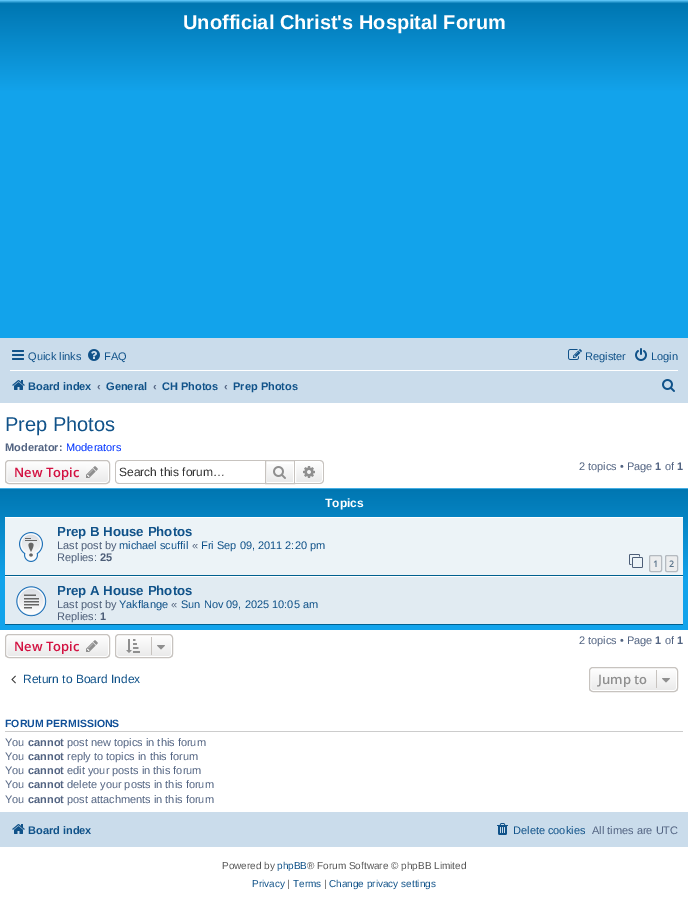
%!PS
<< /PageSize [688 899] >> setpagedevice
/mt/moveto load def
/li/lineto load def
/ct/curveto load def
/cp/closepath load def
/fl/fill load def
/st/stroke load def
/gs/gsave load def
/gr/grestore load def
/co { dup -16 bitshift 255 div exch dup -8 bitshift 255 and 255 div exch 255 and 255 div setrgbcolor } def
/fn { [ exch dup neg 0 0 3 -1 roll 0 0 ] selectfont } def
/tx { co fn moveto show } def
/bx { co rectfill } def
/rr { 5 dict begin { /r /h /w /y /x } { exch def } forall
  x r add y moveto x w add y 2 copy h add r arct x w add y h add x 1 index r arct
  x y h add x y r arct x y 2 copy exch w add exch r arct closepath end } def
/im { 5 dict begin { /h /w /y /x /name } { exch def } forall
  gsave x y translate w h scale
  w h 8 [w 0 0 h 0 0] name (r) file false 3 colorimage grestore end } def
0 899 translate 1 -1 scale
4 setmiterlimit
0 0 688 899 16#FFFFFF bx
gs 0 0 mt 688 0 li 688 338 li 0 338 li cp clip newpath
<< /ShadingType 2 /ColorSpace /DeviceRGB /Coords [344 0 344 339] /Extend [true true] /Function << /FunctionType 3 /Domain [0 1] /Functions [<< /FunctionType 2 /Domain [0 1] /C0 [.416 .808 1] /C1 [0 .463 .694] /N 1 >> << /FunctionType 2 /Domain [0 1] /C0 [0 .463 .694] /C1 [.071 .639 .922] /N 1 >> << /FunctionType 2 /Domain [0 1] /C0 [.071 .639 .922] /C1 [.071 .639 .922] /N 1 >>] /Bounds [.01 .27] /Encode [0 1 0 1 0 1] >> >> shfill gr
0 338 688 65 16#CADCEB bx
(media/1.raw) 12 350 12 10 im
(media/2.raw) 88 349 12 12 im
(media/3.raw) 568 349 14 11 im
(media/4.raw) 635 348 12 13 im
10 370 668 1 16#FFFFFF bx
(media/5.raw) 12 380 13 10 im
(media/6.raw) 662 379 13 13 im
gs
5 460 105 24 4 rr clip newpath
gs 5 461 mt 110 461 li 110 483 li 5 483 li cp clip newpath
<< /ShadingType 2 /ColorSpace /DeviceRGB /Coords [58 461 58 483] /Extend [true true] /Function << /FunctionType 2 /Domain [0 1] /C0 [1 1 1] /C1 [.914 .914 .914] /N 1 >> >> shfill gr
gr
6.5 461.5 102 21 2.5 rr st
16#C7C3BF co
5.5 460.5 104 23 3.5 rr st
(media/7.raw) 86 466 12 12 im
119 460 mt 265 460 li 265 484 li 119 484 li 117 484 115 482 115 480 ct 115 464 li 115 462 117 460 119 460 ct cp 119 461 mt 265 461 li 265 483 li 119 483 li 117 483 116 482 116 480 ct 116 464 li 116 462 117 461 119 461 ct cp eofill
gs 267 464 mt 293 464 li 293 482 li 267 482 li cp clip newpath
<< /ShadingType 2 /ColorSpace /DeviceRGB /Coords [280 461 280 483] /Extend [true true] /Function << /FunctionType 2 /Domain [0 1] /C0 [1 1 1] /C1 [.914 .914 .914] /N 1 >> >> shfill gr
265.5 460.5 29 23 rectstroke
(media/8.raw) 273 466 13 13 im
gs 295.5 461.5 mt 320 461.5 li 321.5 461.5 322.5 462.5 322.5 464 ct 322.5 480 li 322.5 481.5 321.5 482.5 320 482.5 ct 295.5 482.5 li cp clip newpath
<< /ShadingType 2 /ColorSpace /DeviceRGB /Coords [309 461 309 483] /Extend [true true] /Function << /FunctionType 2 /Domain [0 1] /C0 [1 1 1] /C1 [.914 .914 .914] /N 1 >> >> shfill gr
16#FFFFFF co
295.5 461.5 mt 320 461.5 li 321.5 461.5 322.5 462.5 322.5 464 ct 322.5 480 li 322.5 481.5 321.5 482.5 320 482.5 ct 295.5 482.5 li cp st
16#C7C3BF co
295 460 mt 320 460 li 322 460 324 462 324 464 ct 324 480 li 324 482 322 484 320 484 ct 295 484 li cp 295 461 mt 320 461 li 321.5 461 323 462.5 323 464 ct 323 480 li 323 481.5 321.5 483 320 483 ct 295 483 li cp eofill
(media/9.raw) 303 466 12 12 im
gs 0 488 mt 688 488 li 688 630 li 0 630 li cp clip newpath
<< /ShadingType 2 /ColorSpace /DeviceRGB /Coords [344 488 344 630] /Extend [true true] /Function << /FunctionType 3 /Domain [0 1] /Functions [<< /FunctionType 2 /Domain [0 1] /C0 [.416 .808 1] /C1 [0 .463 .694] /N 1 >> << /FunctionType 2 /Domain [0 1] /C0 [0 .463 .694] /C1 [.071 .639 .922] /N 1 >> << /FunctionType 2 /Domain [0 1] /C0 [.071 .639 .922] /C1 [.071 .639 .922] /N 1 >>] /Bounds [.01 .65] /Encode [0 1 0 1 0 1] >> >> shfill gr
5 518 678 57 16#ECF3F7 bx
5 517 678 1 16#FFFFFF bx
5 575 678 1 16#00608F bx
(media/10.raw) 19 532 24 30 im
(media/11.raw) 629 554 14 14 im
16#ECEDEE co
649.5 555.5 12 16 1.5 rr gs fl gr
16#B4BAC0 co
st
16#ECEDEE co
665.5 555.5 12 16 1.5 rr gs fl gr
16#B4BAC0 co
st
5 577 678 47 16#E1EBF2 bx
5 576 678 1 16#FFFFFF bx
5 624 678 1 16#00608F bx
(media/12.raw) 16 586 31 31 im
gs
5 634 105 24 4 rr clip newpath
gs 5 635 mt 110 635 li 110 657 li 5 657 li cp clip newpath
<< /ShadingType 2 /ColorSpace /DeviceRGB /Coords [58 635 58 657] /Extend [true true] /Function << /FunctionType 2 /Domain [0 1] /C0 [1 1 1] /C1 [.914 .914 .914] /N 1 >> >> shfill gr
gr
16#FFFFFF co
6.5 635.5 102 21 2.5 rr st
16#C7C3BF co
5.5 634.5 104 23 3.5 rr st
(media/7.raw) 86 640 12 12 im
gs
115 634 58 24 4 rr clip newpath
gs 115 635 mt 173 635 li 173 657 li 115 657 li cp clip newpath
<< /ShadingType 2 /ColorSpace /DeviceRGB /Coords [144 635 144 657] /Extend [true true] /Function << /FunctionType 2 /Domain [0 1] /C0 [1 1 1] /C1 [.914 .914 .914] /N 1 >> >> shfill gr
gr
16#FFFFFF co
116.5 635.5 55 21 2.5 rr st
16#C7C3BF co
115.5 634.5 57 23 3.5 rr st
(media/13.raw) 126 639 14 14 im
151 637 1 18 16#C7C3BF bx
(media/14.raw) 157 645 8 5 im
(media/15.raw) 11 675 5 9 im
gs
589 667 89 25 4 rr clip newpath
gs 589 668 mt 678 668 li 678 691 li 589 691 li cp clip newpath
<< /ShadingType 2 /ColorSpace /DeviceRGB /Coords [634 668 634 691] /Extend [true true] /Function << /FunctionType 2 /Domain [0 1] /C0 [1 1 1] /C1 [.914 .914 .914] /N 1 >> >> shfill gr
gr
16#FFFFFF co
590.5 668.5 86 22 2.5 rr st
16#C7C3BF co
589.5 667.5 88 24 3.5 rr st
656 670 1 18 16#C7C3BF bx
(media/14.raw) 662 678 8 5 im
5 731 678 1 16#CCCCCC bx
0 812 688 35 16#CADCEB bx
(media/5.raw) 12 824 13 10 im
(media/16.raw) 497 823 11 12 im
(Unofficial Christ's Hospital Forum) 183 29 /LiberationSans-Bold 20 16#FFFFFF tx
(Quick links) 28 360 /LiberationSans-Regular 11 16#105289 tx
(FAQ) 104 360 /LiberationSans-Regular 11 16#105289 tx
(Register) 585 360 /LiberationSans-Regular 11 16#105289 tx
(Login) 651 360 /LiberationSans-Regular 11 16#105289 tx
(Board index) 28 390 /LiberationSans-Bold 11 16#105289 tx
(‹) 97 390 /LiberationSans-Bold 11 16#536482 tx
(General) 106 390 /LiberationSans-Bold 11 16#105289 tx
(‹) 153 390 /LiberationSans-Bold 11 16#536482 tx
(CH Photos) 162 390 /LiberationSans-Bold 11 16#105289 tx
(‹) 224 390 /LiberationSans-Bold 11 16#536482 tx
(Prep Photos) 233 390 /LiberationSans-Bold 11 16#105289 tx
(Prep Photos) 5 431 /LiberationSans-Regular 20 16#105289 tx
(Moderator:) 5 451 /LiberationSans-Bold 11 16#536482 tx
(Moderators) 66 451 /LiberationSans-Regular 11 16#0033FF tx
(New Topic) 14 477 /OpenSans-SemiBold 13 16#D31141 tx
(Search this forum…) 119 476 /LiberationSans-Regular 12 16#333333 tx
(2 topics • Page) 579 470 /LiberationSans-Regular 11 16#536482 tx
(1) 655 470 /LiberationSans-Bold 11 16#536482 tx
(of) 665 470 /LiberationSans-Regular 11 16#536482 tx
(1) 677 470 /LiberationSans-Bold 11 16#536482 tx
(Topics) 325 507 /LiberationSans-Bold 12 16#FFFFFF tx
(Prep B House Photos) 57 536 /LiberationSans-Bold 13.25 16#105289 tx
(Last post by) 57 549 /LiberationSans-Regular 11 16#4C5D77 tx
(michael scuffil) 119 549 /LiberationSans-Regular 11 16#105289 tx
(«) 192 549 /LiberationSans-Regular 11 16#4C5D77 tx
(Fri Sep 09, 2011 2:20 pm) 201 549 /LiberationSans-Regular 11 16#105289 tx
(Replies:) 57 561 /LiberationSans-Regular 11 16#4C5D77 tx
(25) 100 561 /LiberationSans-Bold 11 16#4C5D77 tx
(1) 653 567 /OpenSans-SemiBold 9 16#5C758C tx
(2) 669 567 /OpenSans-SemiBold 9 16#5C758C tx
(Prep A House Photos) 57 595 /LiberationSans-Bold 13.25 16#105289 tx
(Last post by) 57 608 /LiberationSans-Regular 11 16#4C5D77 tx
(Yakflange) 119 608 /LiberationSans-Regular 11 16#105289 tx
(«) 171 608 /LiberationSans-Regular 11 16#4C5D77 tx
(Sun Nov 09, 2025 10:05 am) 181 608 /LiberationSans-Regular 11 16#105289 tx
(Replies:) 57 620 /LiberationSans-Regular 11 16#4C5D77 tx
(1) 100 620 /LiberationSans-Bold 11 16#4C5D77 tx
(New Topic) 14 651 /OpenSans-SemiBold 13 16#D31141 tx
(2 topics • Page) 579 644 /LiberationSans-Regular 11 16#536482 tx
(1) 655 644 /LiberationSans-Bold 11 16#536482 tx
(of) 665 644 /LiberationSans-Regular 11 16#536482 tx
(1) 677 644 /LiberationSans-Bold 11 16#536482 tx
(Return to Board Index) 23 683 /LiberationSans-Regular 12 16#105289 tx
(Jump to) 598 684 /OpenSans-SemiBold 13 16#8F8F8F tx
(FORUM PERMISSIONS) 5 727 /LiberationSans-Bold 10.5 16#115098 tx
(You) 5 746 /LiberationSans-Regular 11 16#536482 tx
(cannot) 28 746 /LiberationSans-Bold 11 16#536482 tx
(post new topics in this forum) 67 746 /LiberationSans-Regular 11 16#536482 tx
(You) 5 760 /LiberationSans-Regular 11 16#536482 tx
(cannot) 28 760 /LiberationSans-Bold 11 16#536482 tx
(reply to topics in this forum) 67 760 /LiberationSans-Regular 11 16#536482 tx
(You) 5 774 /LiberationSans-Regular 11 16#536482 tx
(cannot) 28 774 /LiberationSans-Bold 11 16#536482 tx
(edit your posts in this forum) 67 774 /LiberationSans-Regular 11 16#536482 tx
(You) 5 788 /LiberationSans-Regular 11 16#536482 tx
(cannot) 28 788 /LiberationSans-Bold 11 16#536482 tx
(delete your posts in this forum) 67 788 /LiberationSans-Regular 11 16#536482 tx
(You) 5 803 /LiberationSans-Regular 11 16#536482 tx
(cannot) 28 803 /LiberationSans-Bold 11 16#536482 tx
(post attachments in this forum) 67 803 /LiberationSans-Regular 11 16#536482 tx
(Board index) 28 834 /LiberationSans-Bold 11 16#105289 tx
(Delete cookies) 513 834 /LiberationSans-Regular 11 16#105289 tx
(All times are UTC) 592 834 /LiberationSans-Regular 11 16#536482 tx
(Powered by) 222 869 /LiberationSans-Regular 10 16#555555 tx
(phpBB) 277 869 /LiberationSans-Regular 10 16#105289 tx
(® Forum Software © phpBB Limited) 307 869 /LiberationSans-Regular 10 16#555555 tx
(Privacy) 252 887 /LiberationSans-Regular 10 16#105289 tx
(|) 287 887 /LiberationSans-Regular 10 16#555555 tx
(Terms) 293 887 /LiberationSans-Regular 10 16#105289 tx
(|) 324 887 /LiberationSans-Regular 10 16#555555 tx
(Change privacy settings) 329 887 /LiberationSans-Regular 10 16#105289 tx
showpage
